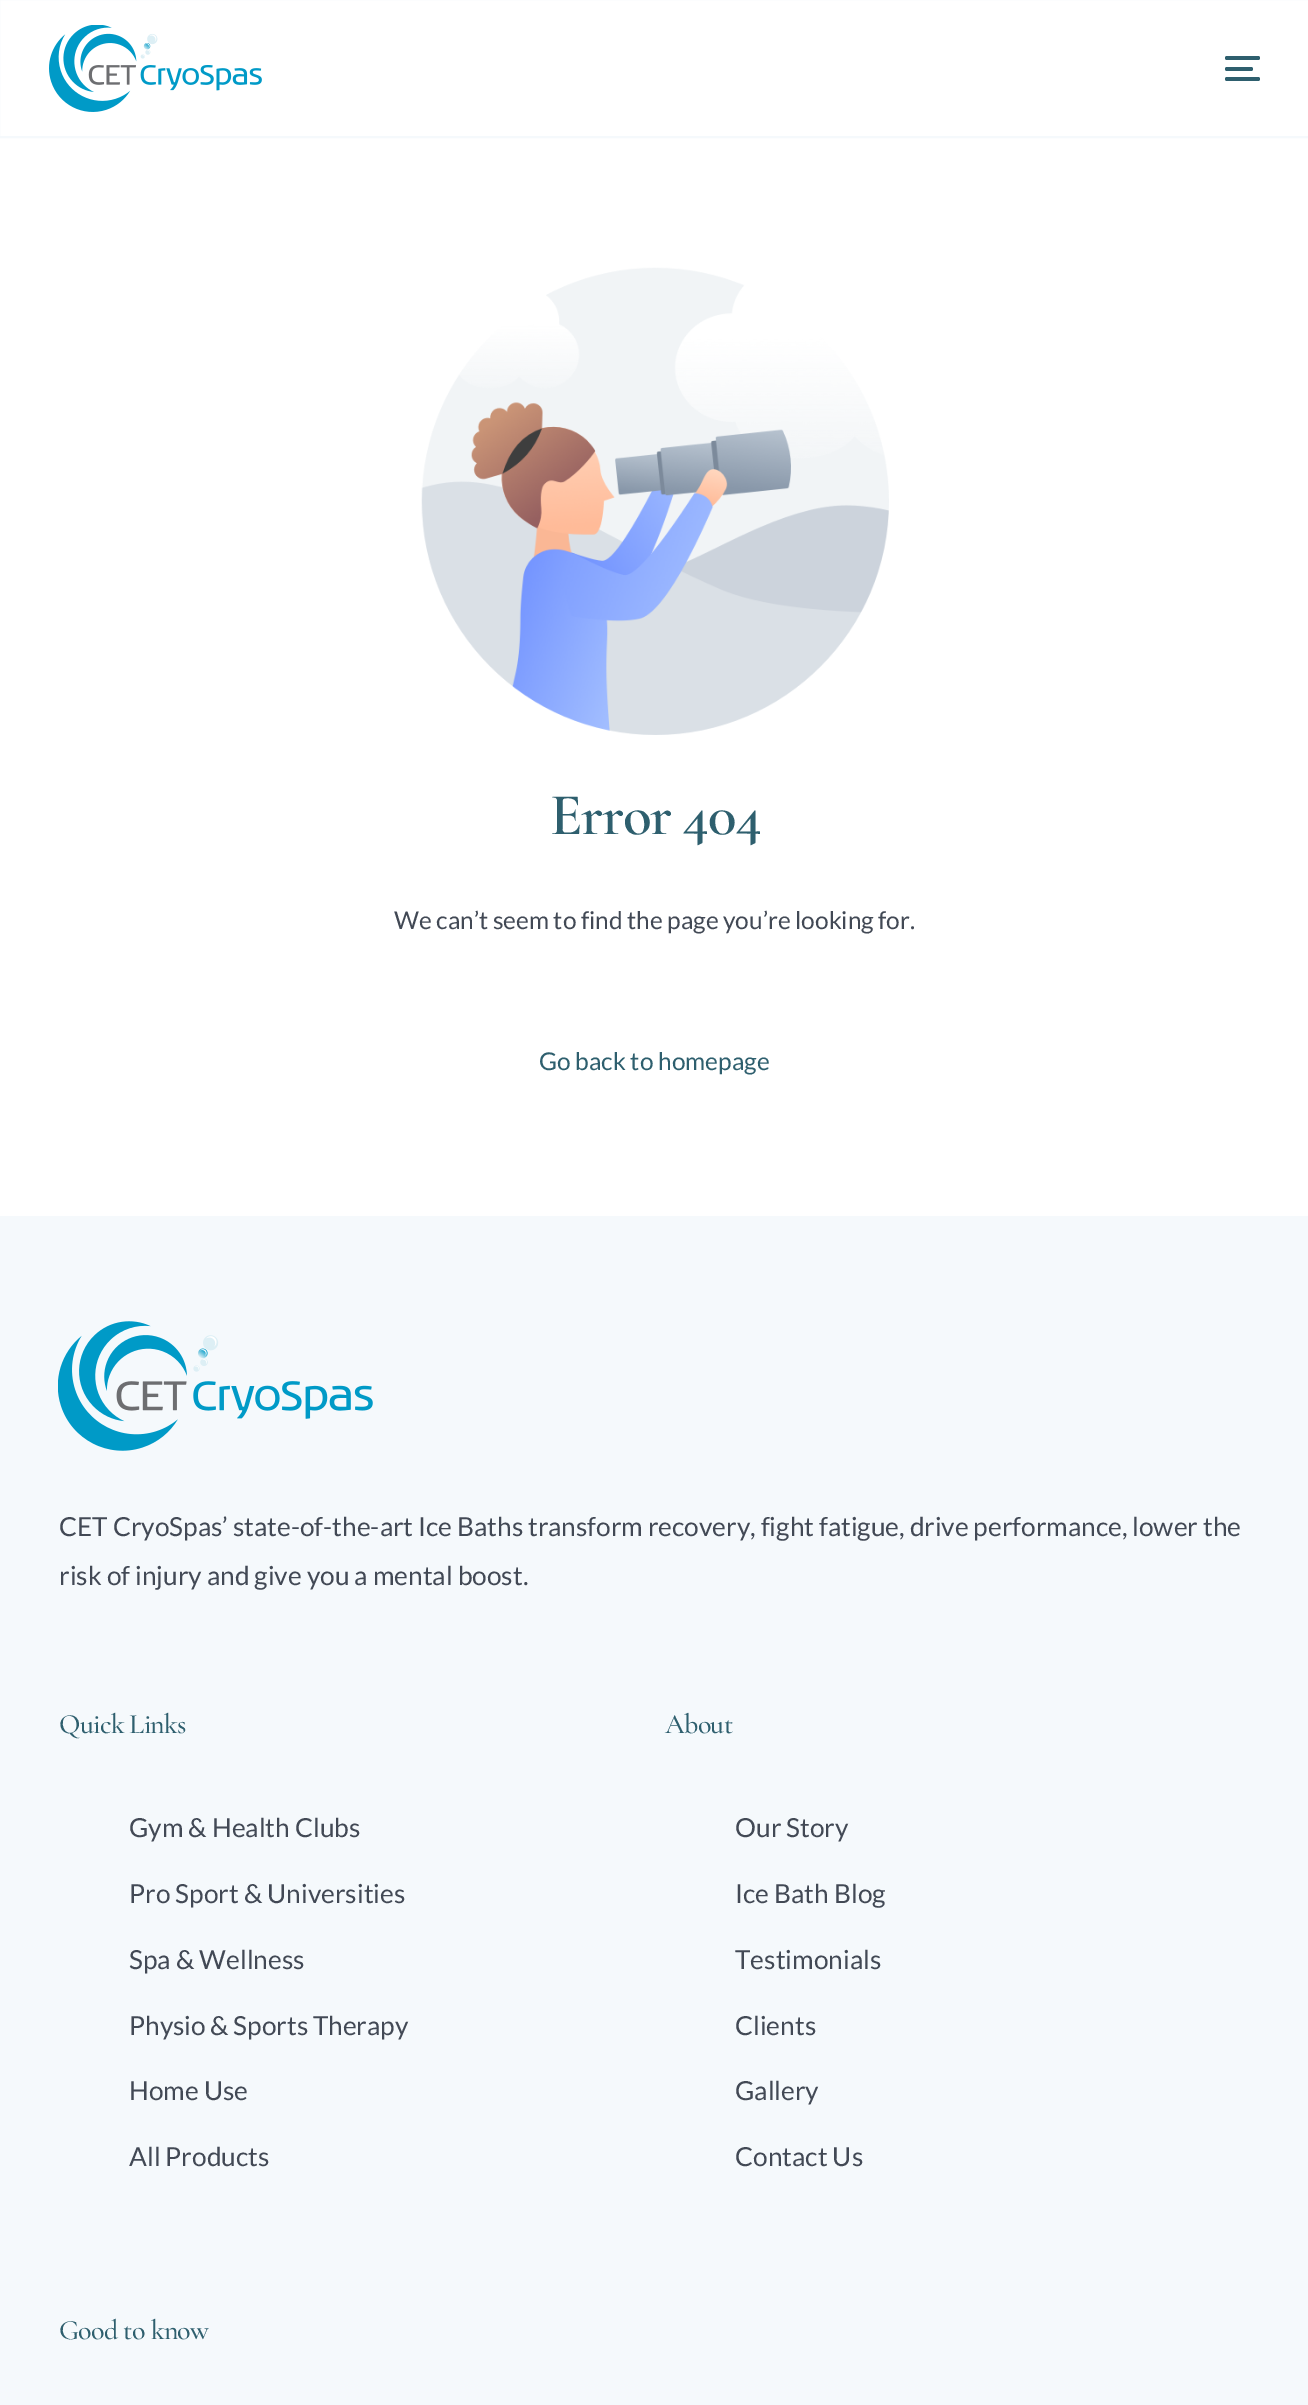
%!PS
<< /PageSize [1308 2405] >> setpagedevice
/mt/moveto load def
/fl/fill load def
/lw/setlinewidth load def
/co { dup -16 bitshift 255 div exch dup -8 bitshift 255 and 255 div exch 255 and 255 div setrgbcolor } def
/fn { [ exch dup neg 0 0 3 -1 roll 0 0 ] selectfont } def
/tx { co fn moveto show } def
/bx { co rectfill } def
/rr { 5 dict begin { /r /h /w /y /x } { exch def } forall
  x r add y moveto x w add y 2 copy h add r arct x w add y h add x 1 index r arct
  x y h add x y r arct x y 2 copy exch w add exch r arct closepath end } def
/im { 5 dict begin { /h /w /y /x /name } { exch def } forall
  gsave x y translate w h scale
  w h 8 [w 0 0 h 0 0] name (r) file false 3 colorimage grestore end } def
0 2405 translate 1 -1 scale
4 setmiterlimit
0 0 1308 2405 16#FFFFFF bx
16#F5F9FC co
2 lw
-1 -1 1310 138 rectstroke
(media/1.raw) 49 25 213 87 im
16#2E5F6E co
1225 56 35 4 2 rr fl
1225 67 28 4 2 rr fl
1225 77 35 4 2 rr fl
(media/2.raw) 421 267 468 468 im
0 1216 1308 1189 16#F5F9FC bx
(media/3.raw) 58 1321 315 130 im
/CormorantGaramond-SemiBold 59.5 fn
16#2E5F6E co
550 834 mt -1 0 32 -1.5 0 (Error 404) awidthshow
/Lato-Regular 24.5 fn
16#424955 co
394 929 mt -.25 0 32 (We can’t seem to find the page you’re looking for.) widthshow
(Go back to homepage) 539 1070 /Lato-Regular 24.5 16#2E5F6E tx
/Lato-Regular 26.25 fn
16#424955 co
59 1536 mt -.25 0 32 (CET CryoSpas’ state-of-the-art Ice Baths transform recovery, fight fatigue, drive performance, lower the) widthshow
(risk of injury and give you a mental boost.) 59 1585 /Lato-Regular 26.25 16#424955 tx
/CormorantGaramond-Medium 28 fn
16#2E5F6E co
59 1733 mt -.75 0 (Quick Links) ashow
(Gym & Health Clubs) 129 1837 /Lato-Regular 26.25 16#424955 tx
(Pro Sport & Universities) 129 1903 /Lato-Regular 26.25 16#424955 tx
(Spa & Wellness) 129 1969 /Lato-Regular 26.25 16#424955 tx
129 2035 mt -.5 0 32 (Physio & Sports Therapy) widthshow
(Home Use) 129 2100 /Lato-Regular 26.25 16#424955 tx
(All Products) 129 2166 /Lato-Regular 26.25 16#424955 tx
/CormorantGaramond-Medium 28 fn
16#2E5F6E co
665 1733 mt -.75 0 (About) ashow
(Our Story) 735 1837 /Lato-Regular 26.25 16#424955 tx
(Ice Bath Blog) 735 1903 /Lato-Regular 26.25 16#424955 tx
(Testimonials) 735 1969 /Lato-Regular 26.25 16#424955 tx
(Clients) 735 2035 /Lato-Regular 26.25 16#424955 tx
(Gallery) 735 2100 /Lato-Regular 26.25 16#424955 tx
(Contact Us) 735 2166 /Lato-Regular 26.25 16#424955 tx
/CormorantGaramond-Medium 28 fn
16#2E5F6E co
59 2339 mt -.75 0 (Good to know) ashow
showpage
